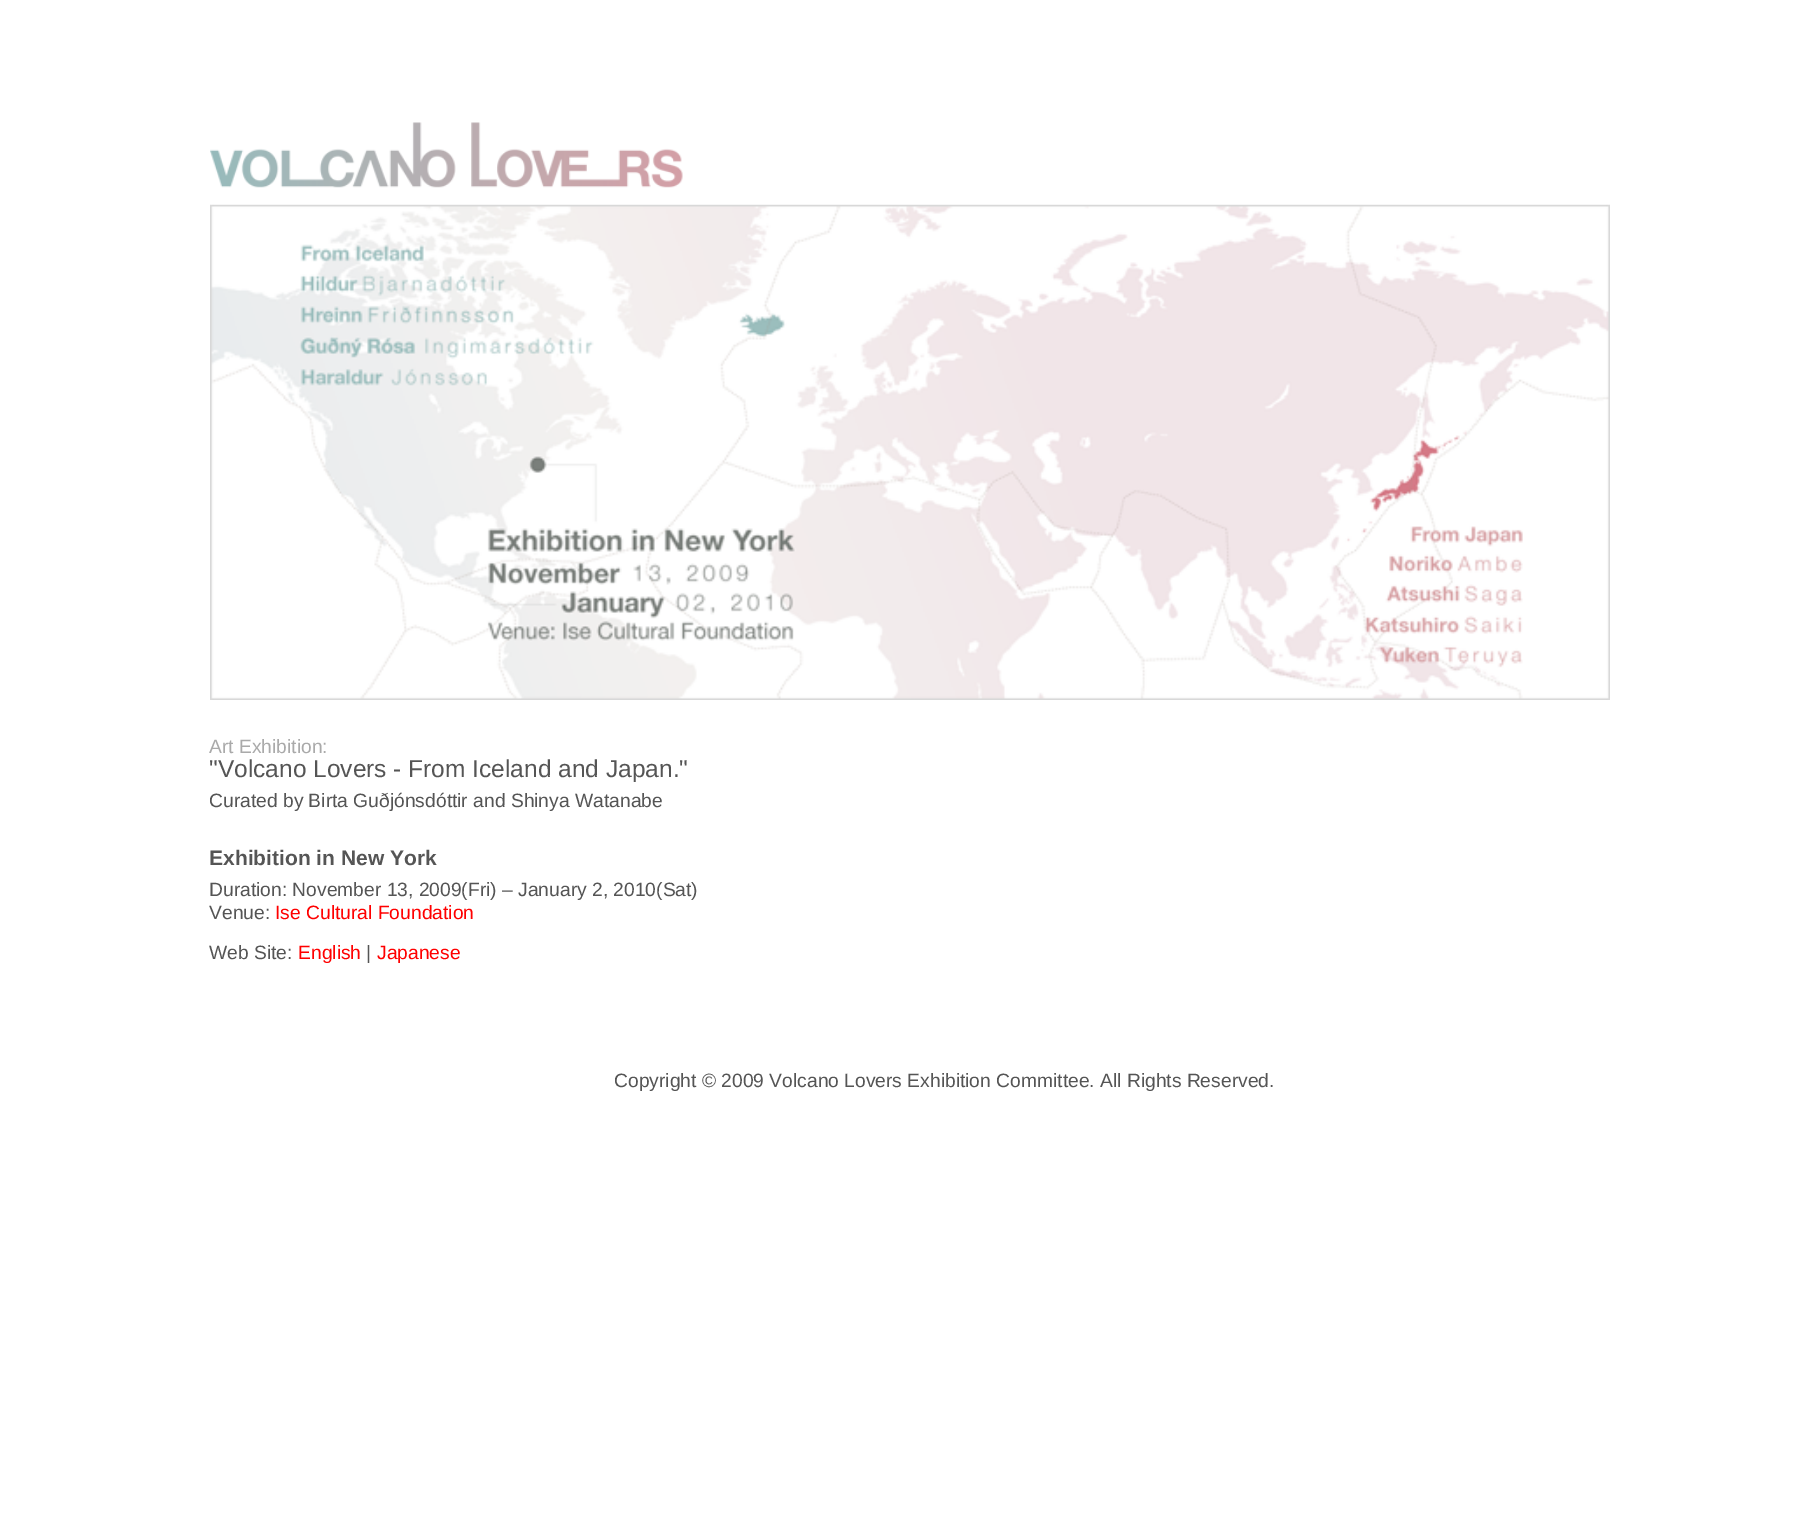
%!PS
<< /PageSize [1818 1518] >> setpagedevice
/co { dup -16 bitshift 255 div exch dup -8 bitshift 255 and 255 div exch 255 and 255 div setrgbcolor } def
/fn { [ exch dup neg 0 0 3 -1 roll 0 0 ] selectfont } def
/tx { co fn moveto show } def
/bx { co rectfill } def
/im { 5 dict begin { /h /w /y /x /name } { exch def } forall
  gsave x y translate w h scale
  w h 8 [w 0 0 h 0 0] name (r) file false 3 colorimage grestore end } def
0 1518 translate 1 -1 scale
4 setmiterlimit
0 0 1818 1518 16#FFFFFF bx
(media/1.raw) 210 122 473 66 im
(media/2.raw) 210 204 1400 496 im
(Art Exhibition:) 209 753 /LiberationSans-Regular 19.25 16#AAAAAA tx
("Volcano Lovers - From Iceland and Japan.") 209 777 /LiberationSans-Regular 24.5 16#555555 tx
(Curated by Birta Guðjónsdóttir and Shinya Watanabe) 209 807 /LiberationSans-Regular 19.25 16#555555 tx
(Exhibition in New York) 209 865 /LiberationSans-Bold 21 16#555555 tx
(Duration: November 13, 2009\(Fri\) – January 2, 2010\(Sat\)) 209 896 /LiberationSans-Regular 19.25 16#555555 tx
(Venue:) 209 919 /LiberationSans-Regular 19.25 16#555555 tx
(Ise Cultural Foundation) 275 919 /LiberationSans-Regular 19.25 16#FF0000 tx
(Web Site:) 209 959 /LiberationSans-Regular 19.25 16#555555 tx
(English) 298 959 /LiberationSans-Regular 19.25 16#FF0000 tx
(|) 366 959 /LiberationSans-Regular 19.25 16#555555 tx
(Japanese) 377 959 /LiberationSans-Regular 19.25 16#FF0000 tx
(Copyright © 2009 Volcano Lovers Exhibition Committee. All Rights Reserved.) 614 1087 /LiberationSans-Regular 19.25 16#555555 tx
showpage
